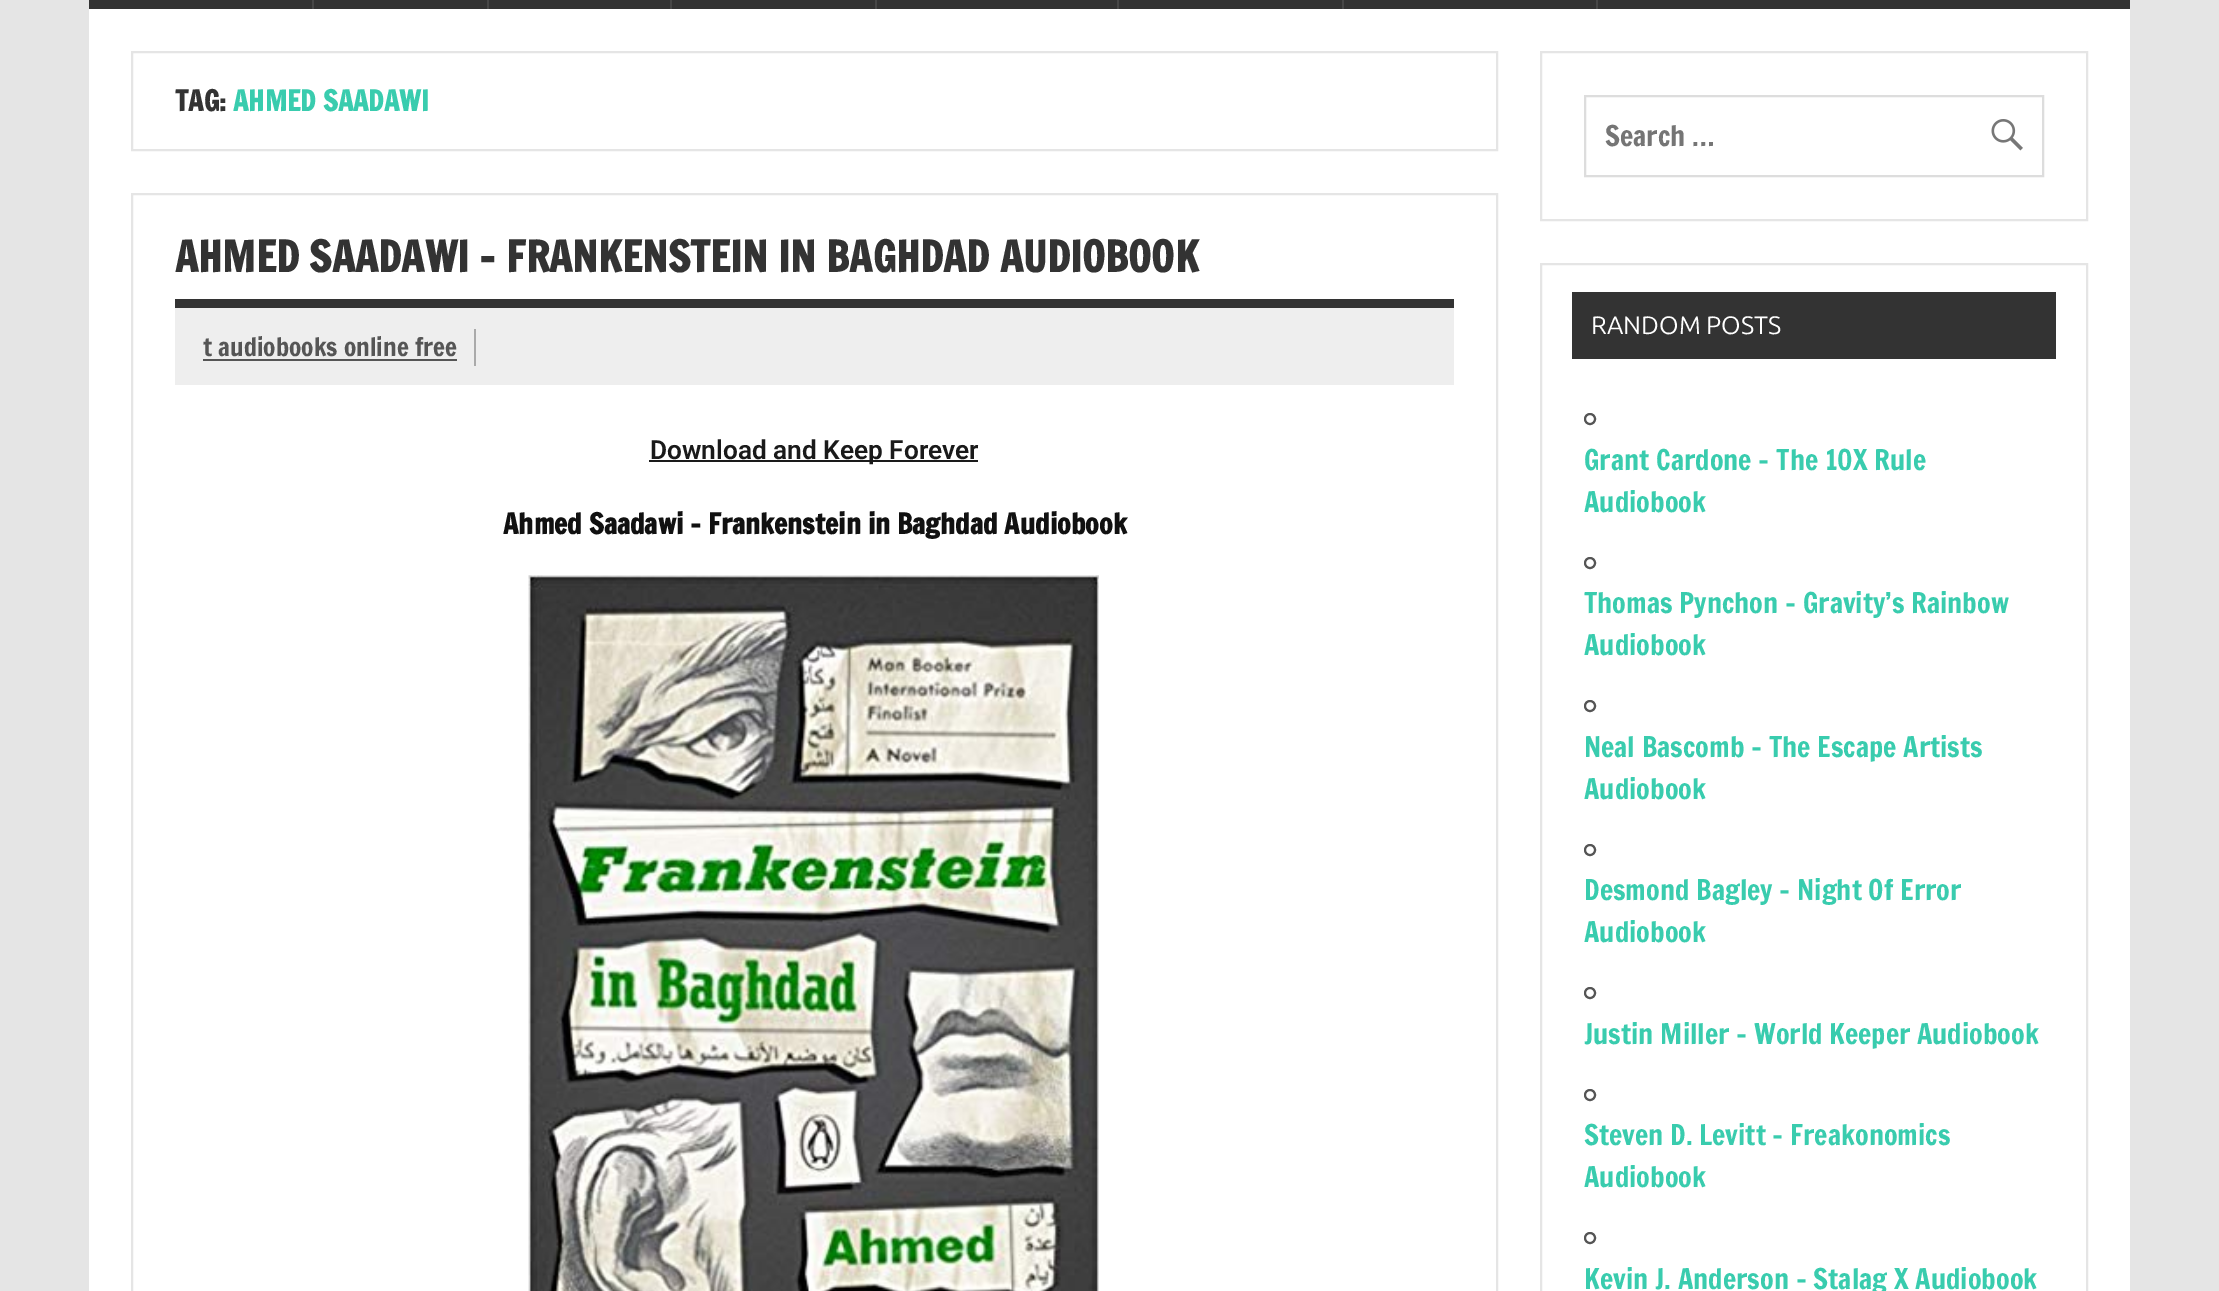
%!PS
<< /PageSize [2219 1291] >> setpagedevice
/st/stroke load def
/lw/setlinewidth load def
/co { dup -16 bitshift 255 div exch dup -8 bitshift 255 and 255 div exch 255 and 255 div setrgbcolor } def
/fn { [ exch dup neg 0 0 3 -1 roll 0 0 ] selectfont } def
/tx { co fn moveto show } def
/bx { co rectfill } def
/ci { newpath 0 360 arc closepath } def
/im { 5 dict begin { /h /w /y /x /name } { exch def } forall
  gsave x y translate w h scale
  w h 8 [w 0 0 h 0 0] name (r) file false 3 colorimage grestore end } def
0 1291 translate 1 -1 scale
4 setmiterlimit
0 0 2219 1291 16#E5E5E5 bx
89 9 2041 1282 16#FFFFFF bx
89 0 2041 9 16#333333 bx
312 0 2 9 16#474747 bx
487 0 2 9 16#474747 bx
670 0 2 9 16#474747 bx
875 0 2 9 16#474747 bx
1117 0 2 9 16#474747 bx
1342 0 2 9 16#474747 bx
1596 0 2 9 16#474747 bx
16#E5E5E5 co
2 lw
132 52 1365 98 rectstroke
132 194 1365 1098 rectstroke
175 299 1279 9 16#333333 bx
175 308 1279 77 16#EEEEEE bx
474 329 2 37 16#AAAAAA bx
203 359 254 2 16#555555 bx
649 460 329 2 16#1A1A1A bx
(media/1.raw) 528 575 571 716 im
16#E5E5E5 co
1541 52 546 168 rectstroke
16#DDDDDD co
1585 96 458 80 rectstroke
(media/2.raw) 1991 119 32 32 im
16#E5E5E5 co
1541 264 546 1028 rectstroke
1572 292 484 67 16#333333 bx
16#555555 co
1590 419 5 ci st
1590 563 5 ci st
1590 706 5 ci st
1590 850 5 ci st
1590 993 5 ci st
1590 1095 5 ci st
1590 1238 5 ci st
(TAG:) 175 111 /FrancoisOne-Bold 28 16#333333 tx
(AHMED SAADAWI) 233 111 /FrancoisOne-Bold 28 16#39CCAE tx
(AHMED SAADAWI – FRANKENSTEIN IN BAGHDAD AUDIOBOOK) 175 272 /FrancoisOne-Bold 42 16#333333 tx
(t audiobooks online free) 203 356 /FrancoisOne-Regular 25.25 16#555555 tx
(Download and Keep Forever) 650 459 /Roboto-SemiBold 26.25 16#1A1A1A tx
(Ahmed Saadawi – Frankenstein in Baghdad Audiobook) 503 534 /FrancoisOne-Bold 28 16#111111 tx
(Search …) 1605 146 /FrancoisOne-Regular 28 16#757575 tx
(RANDOM POSTS) 1591 334 /Ubuntu-Regular 25.25 16#FFFFFF tx
(Grant Cardone – The 10X Rule) 1584 470 /FrancoisOne-Regular 28 16#39CCAE tx
(Audiobook) 1584 512 /FrancoisOne-Regular 28 16#39CCAE tx
(Thomas Pynchon – Gravity’s Rainbow) 1584 613 /FrancoisOne-Regular 28 16#39CCAE tx
(Audiobook) 1584 655 /FrancoisOne-Regular 28 16#39CCAE tx
(Neal Bascomb – The Escape Artists) 1584 757 /FrancoisOne-Regular 28 16#39CCAE tx
(Audiobook) 1584 799 /FrancoisOne-Regular 28 16#39CCAE tx
(Desmond Bagley – Night Of Error) 1584 900 /FrancoisOne-Regular 28 16#39CCAE tx
(Audiobook) 1584 942 /FrancoisOne-Regular 28 16#39CCAE tx
(Justin Miller – World Keeper Audiobook) 1584 1044 /FrancoisOne-Regular 28 16#39CCAE tx
(Steven D. Levitt – Freakonomics) 1584 1145 /FrancoisOne-Regular 28 16#39CCAE tx
(Audiobook) 1584 1187 /FrancoisOne-Regular 28 16#39CCAE tx
(Kevin J. Anderson – Stalag X Audiobook) 1584 1289 /FrancoisOne-Regular 28 16#39CCAE tx
showpage
